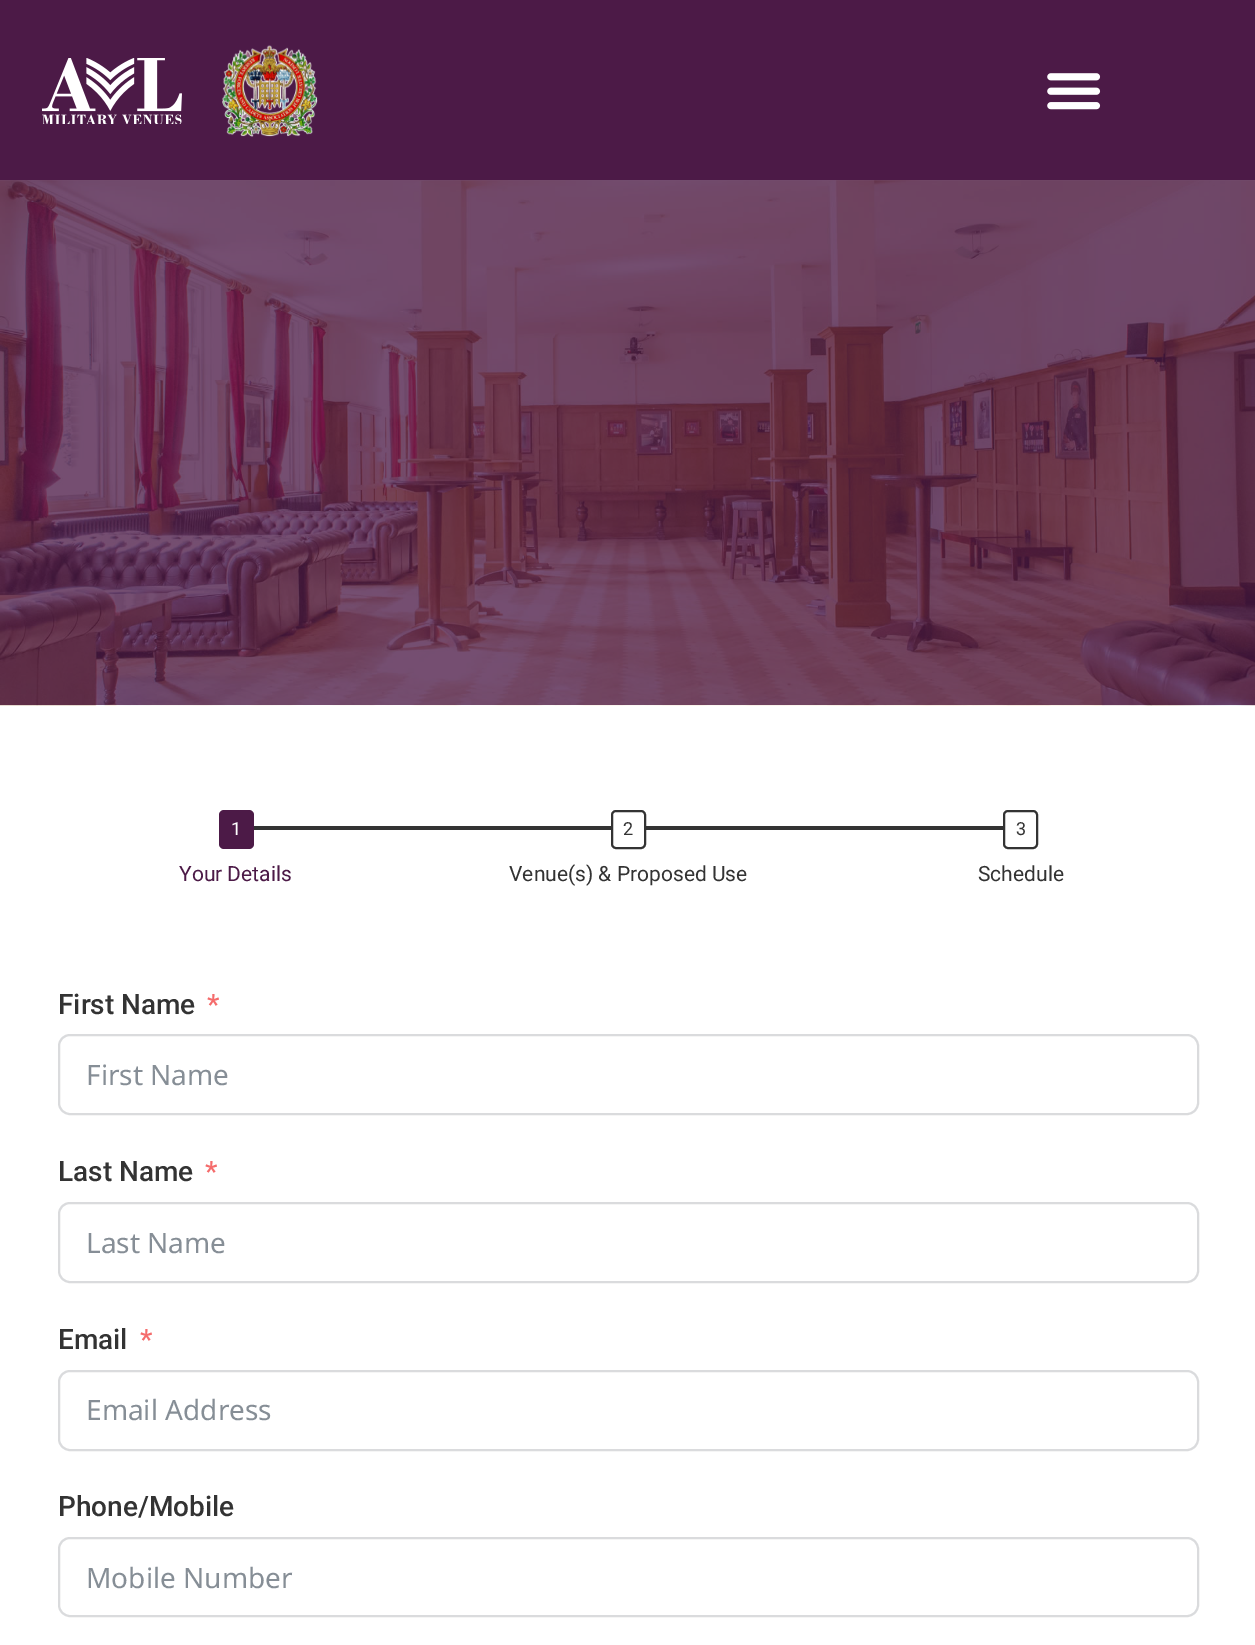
%!PS
<< /PageSize [1255 1645] >> setpagedevice
/fl/fill load def
/st/stroke load def
/lw/setlinewidth load def
/co { dup -16 bitshift 255 div exch dup -8 bitshift 255 and 255 div exch 255 and 255 div setrgbcolor } def
/fn { [ exch dup neg 0 0 3 -1 roll 0 0 ] selectfont } def
/tx { co fn moveto show } def
/bx { co rectfill } def
/rr { 5 dict begin { /r /h /w /y /x } { exch def } forall
  x r add y moveto x w add y 2 copy h add r arct x w add y h add x 1 index r arct
  x y h add x y r arct x y 2 copy exch w add exch r arct closepath end } def
/im { 5 dict begin { /h /w /y /x /name } { exch def } forall
  gsave x y translate w h scale
  w h 8 [w 0 0 h 0 0] name (r) file false 3 colorimage grestore end } def
0 1645 translate 1 -1 scale
4 setmiterlimit
0 0 1255 1645 16#FFFFFF bx
0 0 1255 180 16#4C1A47 bx
(media/1.raw) 42 58 140 66 im
(media/2.raw) 222 45 96 92 im
(media/3.raw) 1047 73 54 37 im
(media/4.raw) 0 180 1255 526 im
219 810 35 39 5 rr fl
254 826 357 4 16#333333 bx
2 lw
612 811 33 37 4 rr st
646 826 357 4 16#333333 bx
1004 811 33 37 4 rr st
16#DADBDD co
59 1035 1139 79 11 rr st
59 1203 1139 79 11 rr st
59 1371 1139 79 11 rr st
59 1538 1139 78 11 rr st
(1) 231 835 /Roboto-Regular 18 16#FFFFFF tx
(Your Details) 179 881 /Roboto-Regular 21 16#4C1A47 tx
(2) 623 835 /Roboto-Regular 18 16#333333 tx
(Venue\(s\) & Proposed Use) 509 881 /Roboto-Regular 21 16#333333 tx
(3) 1016 835 /Roboto-Regular 18 16#333333 tx
(Schedule) 978 881 /Roboto-Regular 21 16#333333 tx
(First Name) 58 1014 /Roboto-Medium 28 16#333333 tx
(*) 207 1014 /Roboto-Medium 28 16#F56C6C tx
(First Name) 86 1085 /NotoSans-Regular 28 16#868E96 tx
(Last Name) 58 1181 /Roboto-Medium 28 16#333333 tx
(*) 205 1181 /Roboto-Medium 28 16#F56C6C tx
(Last Name) 86 1253 /NotoSans-Regular 28 16#868E96 tx
(Email) 58 1349 /Roboto-Medium 28 16#333333 tx
(*) 140 1349 /Roboto-Medium 28 16#F56C6C tx
(Email Address) 86 1420 /NotoSans-Regular 28 16#868E96 tx
(Phone/Mobile) 58 1516 /Roboto-Medium 28 16#333333 tx
(Mobile Number) 86 1588 /NotoSans-Regular 28 16#868E96 tx
showpage
